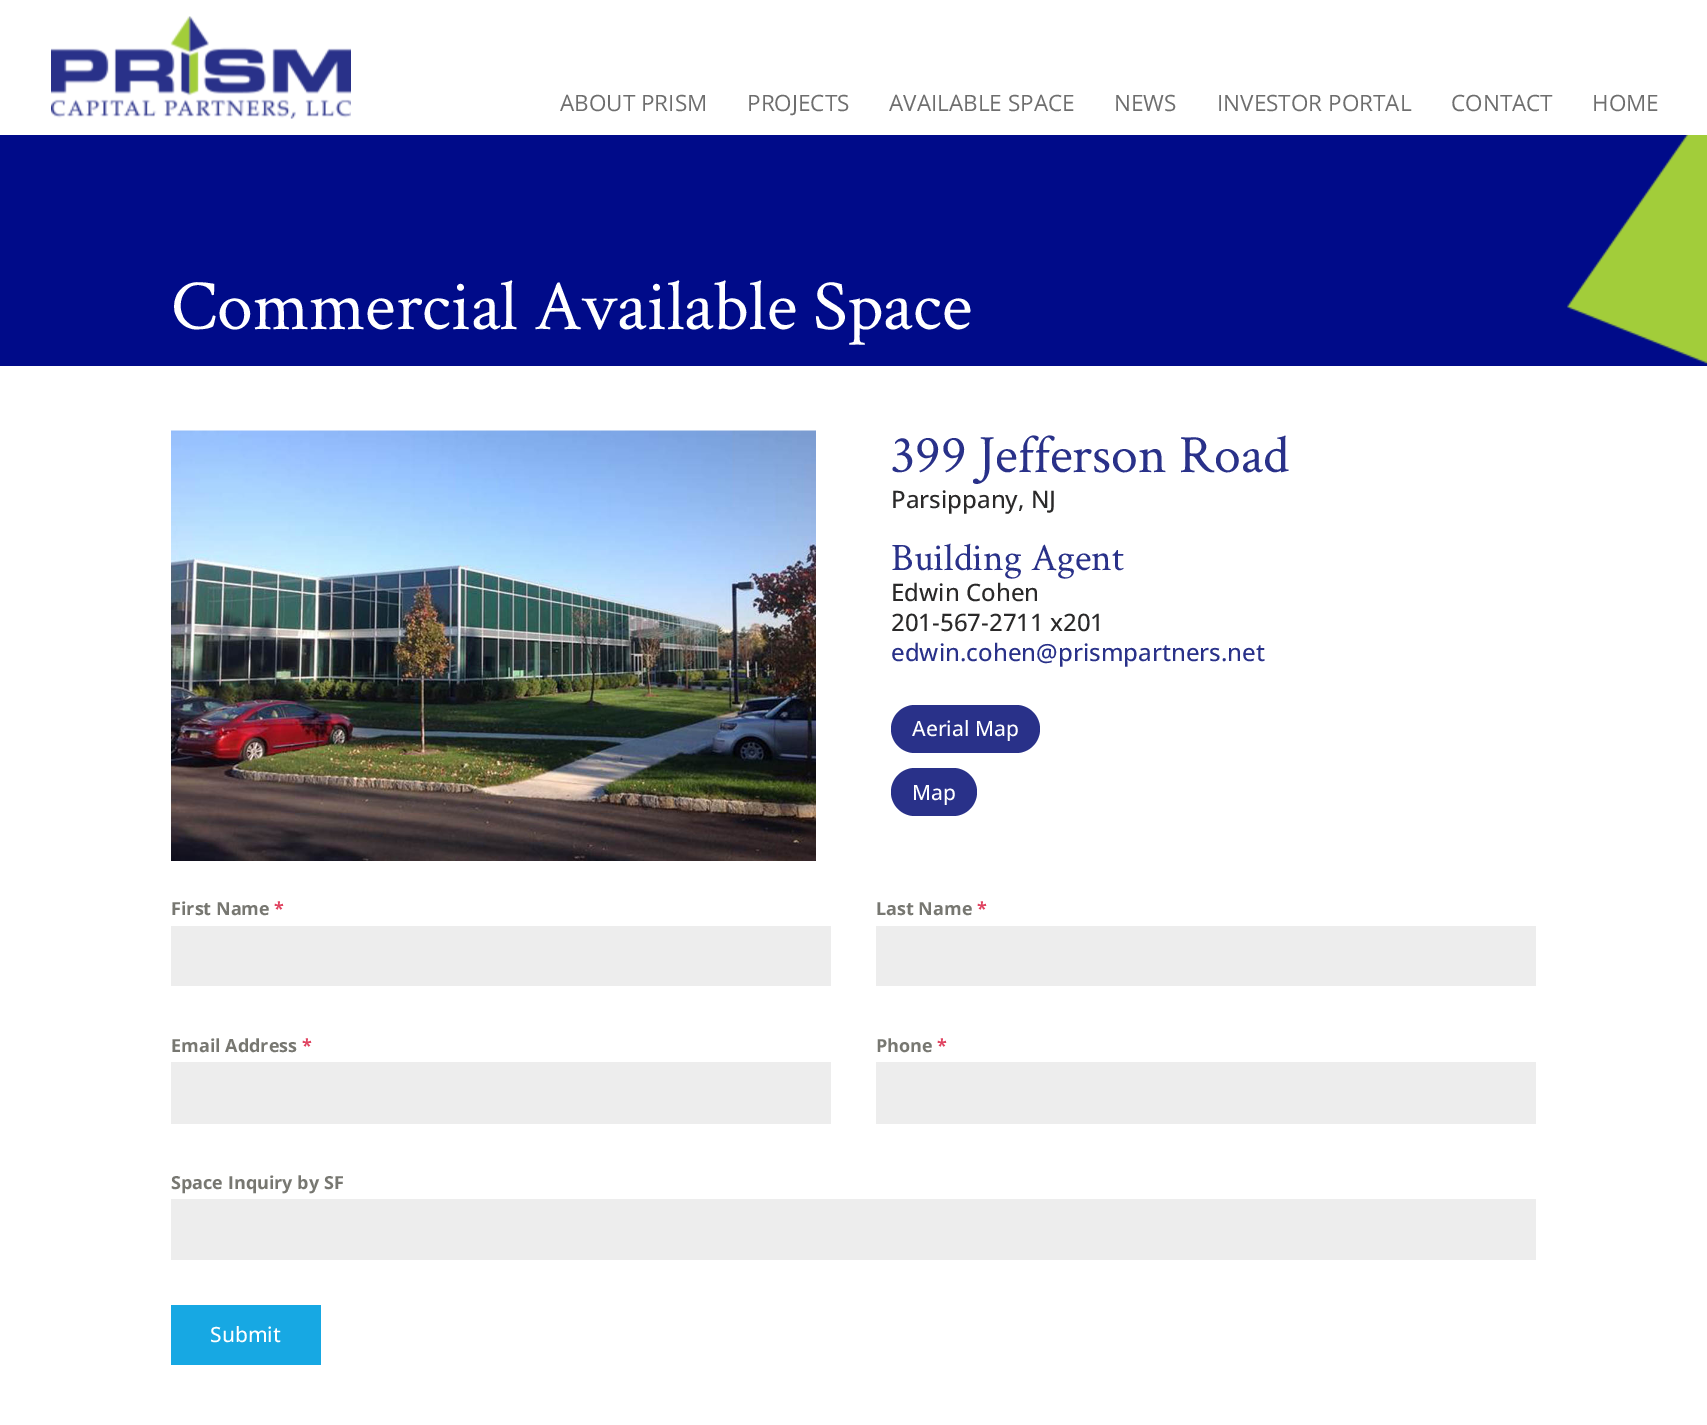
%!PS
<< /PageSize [1707 1425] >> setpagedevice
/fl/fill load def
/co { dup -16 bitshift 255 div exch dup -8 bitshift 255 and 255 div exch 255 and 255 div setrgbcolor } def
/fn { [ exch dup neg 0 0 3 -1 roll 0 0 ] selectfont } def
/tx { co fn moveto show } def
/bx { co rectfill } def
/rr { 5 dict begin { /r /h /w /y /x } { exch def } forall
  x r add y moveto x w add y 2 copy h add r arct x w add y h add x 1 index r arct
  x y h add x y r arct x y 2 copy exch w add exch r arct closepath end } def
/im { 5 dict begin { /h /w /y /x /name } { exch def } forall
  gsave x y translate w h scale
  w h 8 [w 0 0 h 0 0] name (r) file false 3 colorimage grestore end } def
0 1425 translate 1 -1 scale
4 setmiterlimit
0 0 1707 1425 16#FFFFFF bx
(media/1.raw) 51 16 300 103 im
0 135 1707 231 16#000B89 bx
(media/2.raw) 1567 135 140 229 im
(media/3.raw) 171 430 645 431 im
16#293189 co
891 705 149 48 24 rr fl
891 768 86 48 24 rr fl
171 926 660 60 16#EDEDED bx
876 926 660 60 16#EDEDED bx
171 1062 660 62 16#EDEDED bx
876 1062 660 62 16#EDEDED bx
171 1199 1365 61 16#EDEDED bx
171 1305 150 60 16#17A8E3 bx
(ABOUT PRISM) 560 111 /OpenSans-Regular 22.5 16#6E6E6E tx
(PROJECTS) 747 111 /OpenSans-Regular 22.5 16#6E6E6E tx
(AVAILABLE SPACE) 889 111 /OpenSans-Regular 22.5 16#6E6E6E tx
(NEWS) 1114 111 /OpenSans-Regular 22.5 16#6E6E6E tx
(INVESTOR PORTAL) 1217 111 /OpenSans-Regular 22.5 16#6E6E6E tx
(CONTACT) 1451 111 /OpenSans-Regular 22.5 16#6E6E6E tx
(HOME) 1592 111 /OpenSans-Regular 22.5 16#6E6E6E tx
(Commercial Available Space) 171 329 /CrimsonText-Regular 72 16#FFFFFF tx
(399 Jefferson Road) 891 472 /CrimsonText-Regular 54 16#293189 tx
(Parsippany, NJ) 891 508 /OpenSans-Medium 24 16#2A2929 tx
(Building Agent) 891 570 /CrimsonText-Regular 39 16#293189 tx
(Edwin Cohen) 891 601 /OpenSans-Medium 24 16#2A2929 tx
(201-567-2711 x201) 891 631 /OpenSans-Medium 24 16#2A2929 tx
(edwin.cohen@prismpartners.net) 891 661 /OpenSans-Medium 24 16#293189 tx
(Aerial Map) 912 736 /OpenSans-Medium 21 16#FFFFFF tx
(Map) 912 800 /OpenSans-Medium 21 16#FFFFFF tx
(First Name) 171 915 /OpenSans-Bold 18 16#777771 tx
(*) 274 915 /OpenSans-Bold 18 16#E04562 tx
(Last Name) 876 915 /OpenSans-Bold 18 16#777771 tx
(*) 977 915 /OpenSans-Bold 18 16#E04562 tx
(Email Address) 171 1052 /OpenSans-Bold 18 16#777771 tx
(*) 302 1052 /OpenSans-Bold 18 16#E04562 tx
(Phone) 876 1052 /OpenSans-Bold 18 16#777771 tx
(*) 937 1052 /OpenSans-Bold 18 16#E04562 tx
(Space Inquiry by SF) 171 1189 /OpenSans-Bold 18 16#777771 tx
(Submit) 210 1342 /OpenSans-Medium 21 16#FFFFFF tx
showpage
